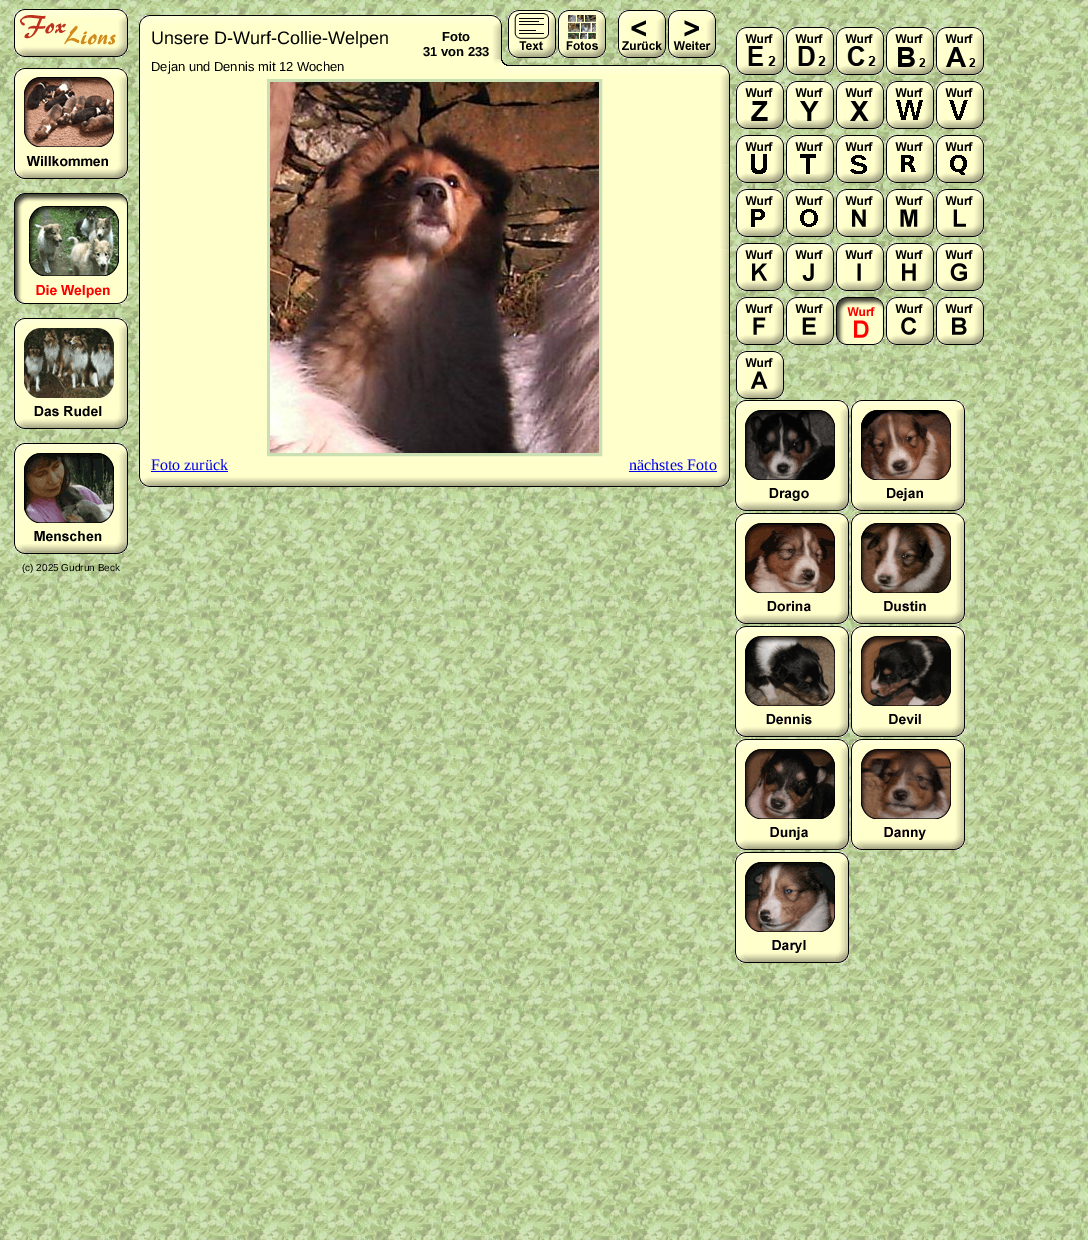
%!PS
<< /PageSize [1088 1240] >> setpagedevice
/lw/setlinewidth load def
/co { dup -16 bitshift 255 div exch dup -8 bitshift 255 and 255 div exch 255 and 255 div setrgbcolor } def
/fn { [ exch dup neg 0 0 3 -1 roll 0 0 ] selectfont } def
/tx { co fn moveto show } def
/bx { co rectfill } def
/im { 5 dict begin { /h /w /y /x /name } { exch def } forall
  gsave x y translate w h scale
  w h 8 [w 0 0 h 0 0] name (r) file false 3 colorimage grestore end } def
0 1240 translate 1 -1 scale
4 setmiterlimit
0 0 1088 1240 16#FFFFFF bx
(media/1.raw) 0 0 1088 1240 im
(media/2.raw) 139 15 12 13 im
(media/3.raw) 151 15 338 13 im
(media/4.raw) 489 15 13 13 im
(media/5.raw) 508 10 48 48 im
(media/6.raw) 558 10 48 48 im
(media/7.raw) 618 10 48 48 im
(media/8.raw) 668 10 48 48 im
(media/9.raw) 139 28 12 31 im
151 28 338 51 16#FFFFCC bx
(media/10.raw) 489 28 13 31 im
(media/11.raw) 139 59 12 19 im
(media/12.raw) 489 59 18 19 im
(media/13.raw) 507 65 210 13 im
(media/14.raw) 717 65 13 13 im
(media/15.raw) 139 78 12 1 im
489 78 228 1 16#FFFFCC bx
(media/16.raw) 717 78 13 1 im
728 78 1 1 16#CBCBA2 bx
(media/17.raw) 139 79 12 395 im
151 79 566 395 16#FFFFCC bx
16#CAE0B3 co
3 lw
268.5 80.5 332 374 rectstroke
(media/18.raw) 270 82 329 371 im
151 471 77 1 16#0000EE bx
629 471 88 1 16#0000EE bx
(media/19.raw) 717 79 13 395 im
(media/20.raw) 139 474 12 13 im
(media/21.raw) 151 474 566 13 im
(media/22.raw) 717 474 13 13 im
(media/23.raw) 736 27 48 48 im
(media/24.raw) 786 27 48 48 im
(media/25.raw) 836 27 48 48 im
(media/26.raw) 886 27 48 48 im
(media/27.raw) 936 27 48 48 im
(media/28.raw) 736 81 48 48 im
(media/29.raw) 786 81 48 48 im
(media/30.raw) 836 81 48 48 im
(media/31.raw) 886 81 48 48 im
(media/32.raw) 936 81 48 48 im
(media/33.raw) 736 135 48 48 im
(media/34.raw) 786 135 48 48 im
(media/35.raw) 836 135 48 48 im
(media/36.raw) 886 135 48 48 im
(media/37.raw) 936 135 48 48 im
(media/38.raw) 736 189 48 48 im
(media/39.raw) 786 189 48 48 im
(media/40.raw) 836 189 48 48 im
(media/41.raw) 886 189 48 48 im
(media/42.raw) 936 189 48 48 im
(media/43.raw) 736 243 48 48 im
(media/44.raw) 786 243 48 48 im
(media/45.raw) 836 243 48 48 im
(media/46.raw) 886 243 48 48 im
(media/47.raw) 936 243 48 48 im
(media/48.raw) 736 297 48 48 im
(media/49.raw) 786 297 48 48 im
(media/50.raw) 836 297 48 48 im
(media/51.raw) 886 297 48 48 im
(media/52.raw) 936 297 48 48 im
(media/53.raw) 736 351 48 48 im
(media/54.raw) 735 400 114 111 im
(media/55.raw) 851 400 114 111 im
(media/56.raw) 735 513 114 111 im
(media/57.raw) 851 513 114 111 im
(media/58.raw) 735 626 114 111 im
(media/59.raw) 851 626 114 111 im
(media/60.raw) 735 739 114 111 im
(media/61.raw) 851 739 114 111 im
(media/62.raw) 735 852 114 111 im
(media/63.raw) 14 9 114 48 im
(media/64.raw) 14 68 114 111 im
(media/65.raw) 14 193 114 111 im
(media/66.raw) 14 318 114 111 im
(media/67.raw) 14 443 114 111 im
(Unsere D-Wurf-Collie-Welpen) 151 44 /LiberationSans-Regular 18 16#000000 tx
(Foto) 442 41 /LiberationSans-Bold 13 16#000000 tx
(31 von 233) 423 56 /LiberationSans-Bold 13 16#000000 tx
(Dejan und Dennis mit 12 Wochen) 151 71 /LiberationSans-Regular 13 16#000000 tx
(Foto zurück) 151 470 /LiberationSerif-Regular 16 16#0000EE tx
(nächstes Foto) 629 470 /LiberationSerif-Regular 16 16#0000EE tx
(\(c\) 2025 Gudrun Beck) 22 571 /LiberationSans-Regular 10 16#000000 tx
showpage
